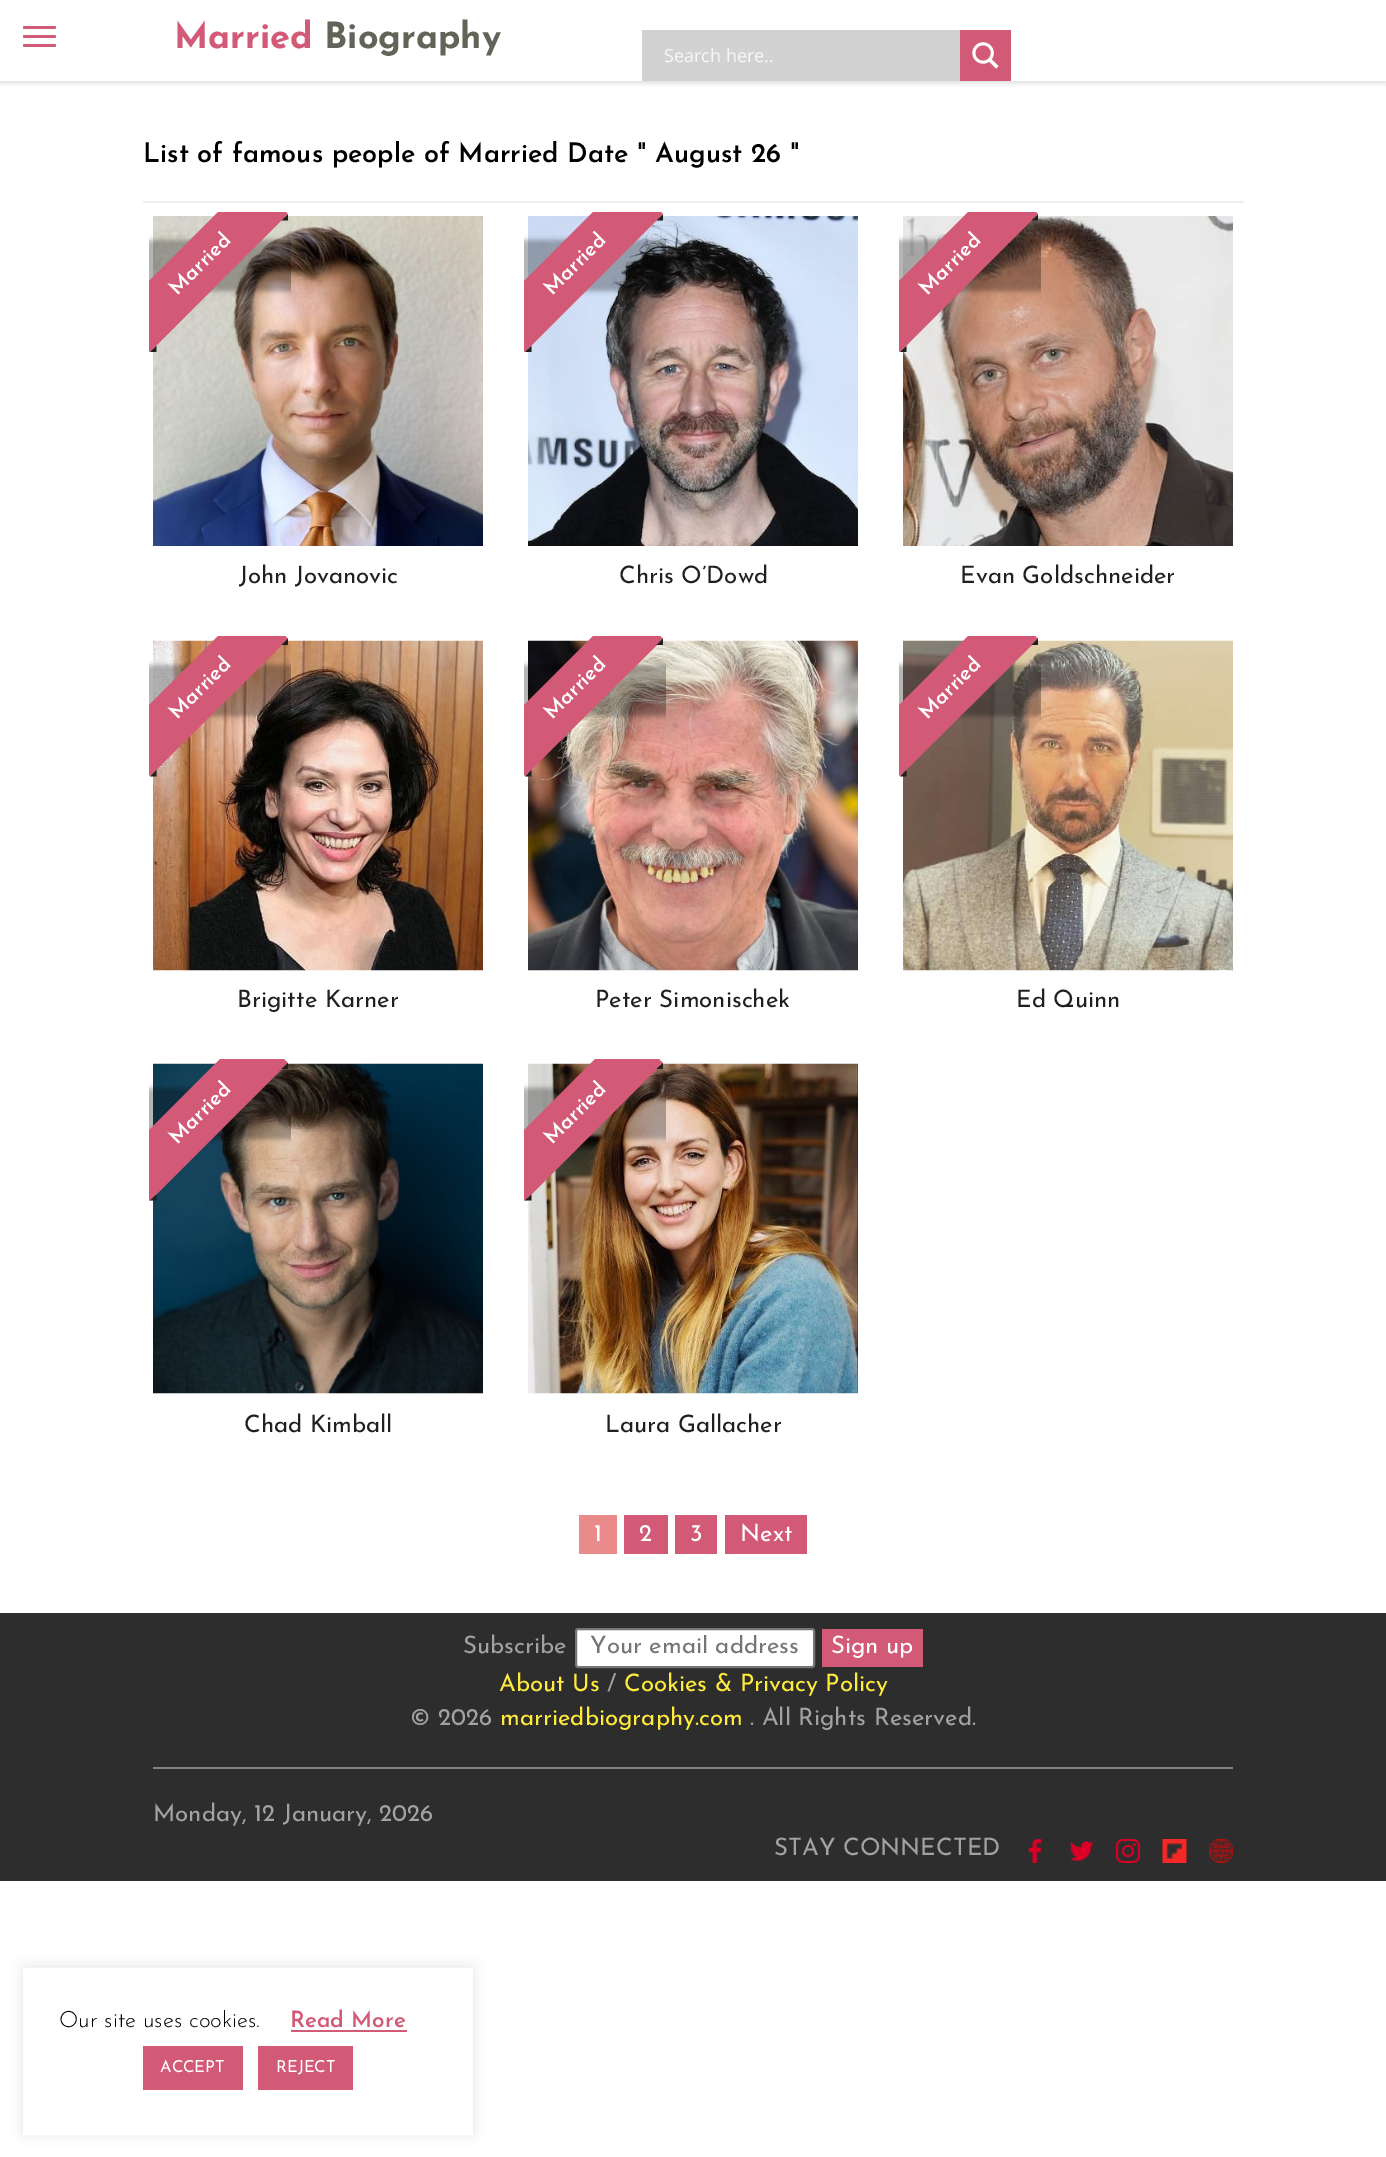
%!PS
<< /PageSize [1386 2157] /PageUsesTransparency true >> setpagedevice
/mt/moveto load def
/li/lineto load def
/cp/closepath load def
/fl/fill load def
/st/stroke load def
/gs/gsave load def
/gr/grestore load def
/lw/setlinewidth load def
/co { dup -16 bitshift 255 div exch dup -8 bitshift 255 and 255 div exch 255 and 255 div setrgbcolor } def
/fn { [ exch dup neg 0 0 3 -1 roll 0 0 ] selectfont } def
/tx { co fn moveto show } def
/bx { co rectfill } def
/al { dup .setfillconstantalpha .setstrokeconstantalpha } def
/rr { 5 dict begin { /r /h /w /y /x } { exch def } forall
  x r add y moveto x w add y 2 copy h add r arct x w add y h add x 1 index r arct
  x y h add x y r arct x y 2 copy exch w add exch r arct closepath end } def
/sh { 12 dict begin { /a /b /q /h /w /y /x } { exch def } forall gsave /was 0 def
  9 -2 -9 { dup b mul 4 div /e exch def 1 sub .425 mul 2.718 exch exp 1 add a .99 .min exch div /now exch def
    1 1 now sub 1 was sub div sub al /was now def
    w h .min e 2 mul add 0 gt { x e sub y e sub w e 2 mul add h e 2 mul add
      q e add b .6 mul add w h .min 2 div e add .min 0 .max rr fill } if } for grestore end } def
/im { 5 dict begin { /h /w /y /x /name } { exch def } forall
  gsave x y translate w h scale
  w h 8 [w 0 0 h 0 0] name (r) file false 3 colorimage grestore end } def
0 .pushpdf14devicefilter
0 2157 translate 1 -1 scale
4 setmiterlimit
0 0 1386 2157 16#FFFFFF bx
gs
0 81 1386 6 rectclip
16#444444 co
0 2 1386 81 0 3 .2 sh
gr
16#D25A77 co
23 26 33 3 1.5 rr fl
23 35 33 3 1.5 rr fl
23 44 33 3 1.5 rr fl
642 30 318 51 16#D2D2D2 bx
960 30 51 51 16#D25A77 bx
(media/1.raw) 972 42 27 27 im
143 201 1101 2 16#EEEEEE bx
(media/2.raw) 153 216 330 330 im
gs
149 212 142 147 rectclip
16#000000 co
104 240 195 51 0 2.5 .3 sh
gr
gs
149 212 142 147 rectclip
16#D25A77 co
114 316 mt 252 178 li 288 214 li 150 352 li cp fl
gr
16#202020 co
281.5 220.5 mt 288 214.5 li 288 220.5 li cp fl
150 352 mt 156.5 346 li 156.5 352 li cp fl
(media/3.raw) 528 216 330 330 im
gs
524 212 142 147 rectclip
16#000000 co
479 240 195 51 0 2.5 .3 sh
gr
gs
524 212 142 147 rectclip
16#D25A77 co
489 316 mt 627 178 li 663 214 li 525 352 li cp fl
gr
656.5 220.5 mt 663 214.5 li 663 220.5 li cp fl
525 352 mt 531.5 346 li 531.5 352 li cp fl
(media/4.raw) 903 216 330 330 im
gs
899 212 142 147 rectclip
16#000000 co
854 240 195 51 0 2.5 .3 sh
gr
gs
899 212 142 147 rectclip
16#D25A77 co
864 316 mt 1002 178 li 1038 214 li 900 352 li cp fl
gr
1031.5 220.5 mt 1038 214.5 li 1038 220.5 li cp fl
900 352 mt 906.5 346 li 906.5 352 li cp fl
(media/5.raw) 153 640 330 331 im
gs
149 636 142 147 rectclip
16#000000 co
104 665 195 51 0 2.5 .3 sh
gr
gs
149 636 142 147 rectclip
16#D25A77 co
114 740 mt 252 602 li 288 639 li 150 776 li cp fl
gr
281.5 645 mt 288 638.5 li 288 645 li cp fl
150 776.5 mt 156.5 770 li 156.5 776.5 li cp fl
(media/6.raw) 528 640 330 331 im
gs
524 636 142 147 rectclip
16#000000 co
479 665 195 51 0 2.5 .3 sh
gr
gs
524 636 142 147 rectclip
16#D25A77 co
489 740 mt 627 602 li 663 639 li 525 776 li cp fl
gr
656.5 645 mt 663 638.5 li 663 645 li cp fl
525 776.5 mt 531.5 770 li 531.5 776.5 li cp fl
(media/7.raw) 903 640 330 331 im
gs
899 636 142 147 rectclip
16#000000 co
854 665 195 51 0 2.5 .3 sh
gr
gs
899 636 142 147 rectclip
16#D25A77 co
864 740 mt 1002 602 li 1038 639 li 900 776 li cp fl
gr
1031.5 645 mt 1038 638.5 li 1038 645 li cp fl
900 776.5 mt 906.5 770 li 906.5 776.5 li cp fl
(media/8.raw) 153 1063 330 331 im
gs
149 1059 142 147 rectclip
16#000000 co
104 1088 195 51 0 2.5 .3 sh
gr
gs
149 1059 142 147 rectclip
16#D25A77 co
114 1165 mt 252 1027 li 288 1063 li 150 1201 li cp fl
gr
281.5 1069 mt 288 1063 li 288 1069 li cp fl
150 1200.5 mt 156.5 1194.5 li 156.5 1200.5 li cp fl
(media/9.raw) 528 1063 330 331 im
gs
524 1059 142 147 rectclip
16#000000 co
479 1088 195 51 0 2.5 .3 sh
gr
gs
524 1059 142 147 rectclip
16#D25A77 co
489 1165 mt 627 1027 li 663 1063 li 525 1201 li cp fl
gr
656.5 1069 mt 663 1063 li 663 1069 li cp fl
525 1200.5 mt 531.5 1194.5 li 531.5 1200.5 li cp fl
579 1515 38 39 16#E98B8A bx
624 1515 44 39 16#D25A77 bx
675 1515 42 39 16#D25A77 bx
725 1515 82 39 16#D25A77 bx
0 1613 1386 268 16#2E2D2D bx
16#FFFFFF co
576 1629 238 38 2 rr gs fl gr
16#767676 co
2 lw
st
822 1629 101 38 16#D25A77 bx
153 1767 1080 2 16#818181 bx
(media/10.raw) 1028 1839 14 24 im
(media/11.raw) 1069 1841 25 20 im
(media/12.raw) 1116 1839 24 24 im
(media/13.raw) 1162 1839 25 24 im
(media/14.raw) 1209 1839 24 24 im
16#ACABAB co
23 1967 450 166 0 7.5 .3 sh
23 1968 450 167 16#FFFFFF bx
291 2030 116 2 16#D25A77 bx
143 2046 100 44 16#D25A77 bx
258 2046 95 44 16#D25A77 bx
(Married) 174 48 /JosefinSans-Bold 36 16#D25A77 tx
(Biography) 324 48 /JosefinSans-Bold 36 16#646358 tx
(Search here..) 664 62 /OpenSans-Regular 18 16#F8F8F8 tx
(List of famous people of Married Date " August 26 ") 143 162 /JosefinSans-SemiBold 27 16#000000 tx
/JosefinSans-SemiBold 21 fn
16#FFFFFF co
gs 177 296 translate -45 rotate 0 0 mt (Married) show gr
(John Jovanovic) 239 583 /JosefinSans-Regular 24 16#202020 tx
/JosefinSans-SemiBold 21 fn
16#FFFFFF co
gs 552 296 translate -45 rotate 0 0 mt (Married) show gr
(Chris O’Dowd) 619 583 /JosefinSans-Regular 24 16#202020 tx
/JosefinSans-SemiBold 21 fn
16#FFFFFF co
gs 927 296 translate -45 rotate 0 0 mt (Married) show gr
(Evan Goldschneider) 960 583 /JosefinSans-Regular 24 16#202020 tx
/JosefinSans-SemiBold 21 fn
16#FFFFFF co
gs 177 720 translate -45 rotate 0 0 mt (Married) show gr
(Brigitte Karner) 237 1007 /JosefinSans-Regular 24 16#202020 tx
/JosefinSans-SemiBold 21 fn
16#FFFFFF co
gs 552 720 translate -45 rotate 0 0 mt (Married) show gr
(Peter Simonischek) 595 1007 /JosefinSans-Regular 24 16#202020 tx
/JosefinSans-SemiBold 21 fn
16#FFFFFF co
gs 927 720 translate -45 rotate 0 0 mt (Married) show gr
(Ed Quinn) 1016 1007 /JosefinSans-Regular 24 16#202020 tx
/JosefinSans-SemiBold 21 fn
16#FFFFFF co
gs 177 1145 translate -45 rotate 0 0 mt (Married) show gr
(Chad Kimball) 244 1432 /JosefinSans-Regular 24 16#202020 tx
/JosefinSans-SemiBold 21 fn
16#FFFFFF co
gs 552 1145 translate -45 rotate 0 0 mt (Married) show gr
(Laura Gallacher) 605 1432 /JosefinSans-Regular 24 16#202020 tx
(1) 594 1541 /JosefinSans-Regular 24 16#FFFFFF tx
(2) 639 1541 /JosefinSans-Regular 24 16#FFFFFF tx
(3) 690 1541 /JosefinSans-Regular 24 16#FFFFFF tx
(Next) 740 1541 /JosefinSans-Regular 24 16#FFFFFF tx
(Subscribe) 463 1653 /JosefinSans-Regular 24 16#A2A2A2 tx
gs
590 1635 210 24 rectclip
(Your email address) 590 1653 /JosefinSans-Regular 24 16#757575 tx
gr
(Sign up) 831 1653 /JosefinSans-Regular 24 16#FFFFFF tx
(About Us) 499 1691 /JosefinSans-Regular 24 16#FFEB3B tx
(/) 607 1691 /JosefinSans-Regular 24 16#A2A2A2 tx
(Cookies & Privacy Policy) 624 1691 /JosefinSans-Regular 24 16#FFEB3B tx
(© 2026) 410 1725 /JosefinSans-Regular 24 16#A2A2A2 tx
(marriedbiography.com) 500 1725 /JosefinSans-Regular 24 16#FFEB3B tx
(. All Rights Reserved.) 750 1725 /JosefinSans-Regular 24 16#A2A2A2 tx
(Monday, 12 January, 2026) 153 1821 /JosefinSans-Regular 24 16#A2A2A2 tx
(STAY CONNECTED) 774 1855 /JosefinSans-Regular 24 16#A2A2A2 tx
(Our site uses cookies.) 59 2027 /JosefinSans-Light 22.5 16#000000 tx
(Read More) 290 2027 /JosefinSans-SemiBold 22.5 16#D25A77 tx
(ACCEPT) 160 2072 /JosefinSans-Regular 16.5 16#FFFFFF tx
(REJECT) 276 2072 /JosefinSans-Regular 16.5 16#FFFFFF tx
.poppdf14devicefilter showpage
